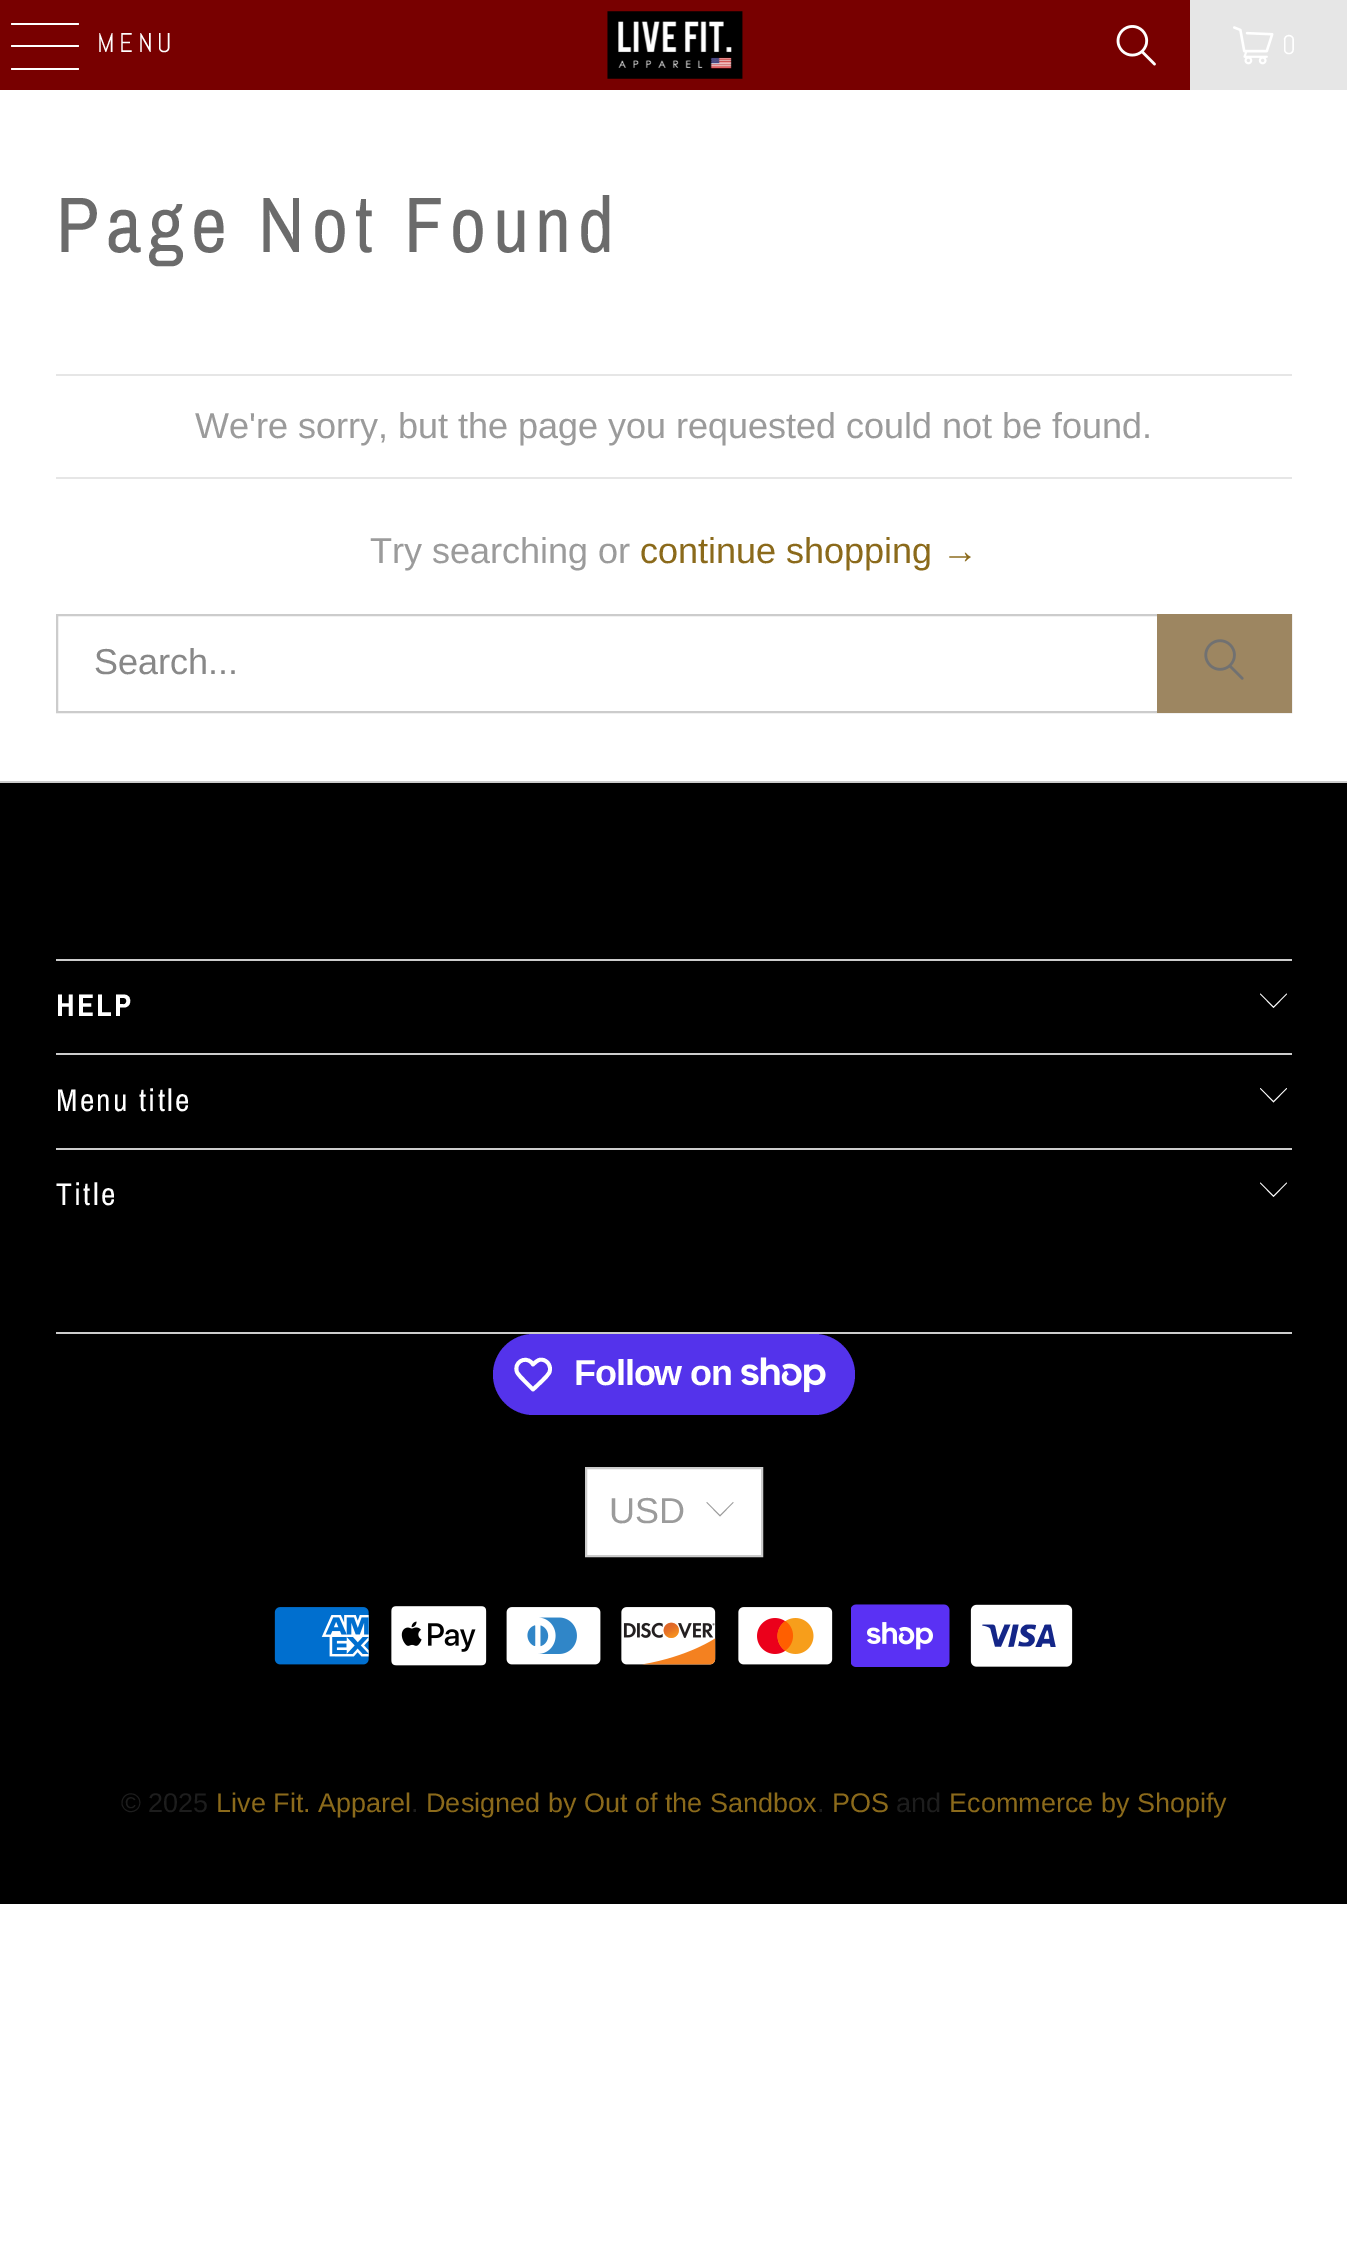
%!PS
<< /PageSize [1347 2268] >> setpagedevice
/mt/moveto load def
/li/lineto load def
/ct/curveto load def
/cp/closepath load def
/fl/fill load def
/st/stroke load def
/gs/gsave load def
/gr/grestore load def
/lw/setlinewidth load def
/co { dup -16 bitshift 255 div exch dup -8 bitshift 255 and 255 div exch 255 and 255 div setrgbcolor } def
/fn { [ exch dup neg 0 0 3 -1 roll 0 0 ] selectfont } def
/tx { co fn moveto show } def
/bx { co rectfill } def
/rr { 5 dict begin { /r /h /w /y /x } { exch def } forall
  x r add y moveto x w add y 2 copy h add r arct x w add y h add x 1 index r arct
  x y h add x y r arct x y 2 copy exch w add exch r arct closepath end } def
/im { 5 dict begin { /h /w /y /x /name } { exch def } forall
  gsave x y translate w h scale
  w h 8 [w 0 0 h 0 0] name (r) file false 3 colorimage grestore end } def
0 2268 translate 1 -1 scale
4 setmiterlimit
0 0 1347 2268 16#FFFFFF bx
0 0 1190 90 16#780000 bx
16#FFFFFF co
11 23 68 2 1 rr fl
11 45 68 2 1 rr fl
11 68 68 2 1 rr fl
(media/1.raw) 607 11 136 68 im
(media/2.raw) 1116 25 40 41 im
1190 0 157 90 16#E6E6E6 bx
(media/3.raw) 1233 26 41 39 im
56 374 1236 2 16#E6E6E6 bx
56 477 1236 2 16#E6E6E6 bx
16#CCCCCC co
2 lw
57 615 1234 97 rectstroke
1157 614 135 99 16#9D8661 bx
(media/4.raw) 1204 639 40 41 im
0 783 1347 1121 16#000000 bx
0 781 1347 2 16#CCCCCC bx
56 959 1236 2 16#CCCCCC bx
16#FFFFFF co
1273.5 1008 mt 1260 994 li 1260.5 993.5 li 1273.5 1006.5 li 1286.5 993.5 li 1287 994 li cp fl
56 1053 1236 2 16#CCCCCC bx
16#FFFFFF co
1273.5 1102.5 mt 1260 1088.5 li 1260.5 1088 li 1273.5 1101 li 1286.5 1088 li 1287 1088.5 li cp fl
56 1148 1236 2 16#CCCCCC bx
16#FFFFFF co
1273.5 1197 mt 1260 1183 li 1260.5 1182.5 li 1273.5 1195.5 li 1286.5 1182.5 li 1287 1183 li cp fl
56 1332 1236 2 16#CCCCCC bx
16#5433EB co
493 1334 362 81 40.5 rr fl
16#FFFFFF co
3.8 lw
1 setlinejoin
531.5 1362.5 mt 533 1364.5 li 535 1362.5 536.5 1361 539 1360 ct 545.5 1358 552 1365 549.5 1372 ct 548.5 1375 545 1377.5 543 1380 ct 533 1389.5 li 523.5 1380 li 521.5 1377.5 518.5 1375.5 517 1372 ct 513.5 1363 524.5 1355.5 531.5 1362.5 ct cp st
(media/5.raw) 741 1357 85 36 im
586 1468 mt 762 1468 li 762 1556 li 586 1556 li cp gs fl gr
16#CCCCCC co
2 lw
0 setlinejoin
st
16#9B9B9B co
720 1516.5 mt 706.5 1502.5 li 707 1502 li 720 1515 li 733 1502 li 733.5 1502.5 li cp fl
(media/6.raw) 274 1607 95 58 im
(media/7.raw) 391 1606 96 60 im
(media/8.raw) 506 1607 95 58 im
(media/9.raw) 621 1607 95 58 im
(media/10.raw) 738 1607 95 58 im
(media/11.raw) 851 1604 99 63 im
(media/12.raw) 970 1604 103 63 im
/Abel-Regular 27 fn
16#FFFFFF co
97 52 mt 4.5 0 (MENU) ashow
1282 54 mt 4.5 0 (0) ashow
/ArchivoNarrow-Regular 78.75 fn
16#6B6B6B co
56 252 mt 6.75 0 (Page Not Found) ashow
(We're sorry, but the page you requested could not be found.) 195 438 /LiberationSans-Regular 36 16#9B9B9B tx
(Try searching or) 370 563 /LiberationSans-Regular 36 16#9B9B9B tx
(continue shopping →) 640 563 /LiberationSans-Regular 36 16#8B6A1B tx
(Search...) 94 674 /LiberationSans-Regular 36 16#888888 tx
/ArchivoNarrow-Bold 31.5 fn
16#FFFFFF co
56 1016 mt 2.25 0 (HELP) ashow
/ArchivoNarrow-Regular 31.5 fn
56 1111 mt 2.25 0 (Menu title) ashow
56 1205 mt 2.25 0 (Title) ashow
/LiberationSans-Bold 36 fn
574 1385 mt -1.1 0 (Follow on) ashow
(USD) 609 1523 /LiberationSans-Regular 36 16#9B9B9B tx
(© 2025) 121 1812 /LiberationSans-Regular 27 16#1D1D1D tx
(Live Fit. Apparel) 216 1812 /LiberationSans-Regular 27 16#8B6A1B tx
(.) 411 1812 /LiberationSans-Regular 27 16#1D1D1D tx
(Designed by Out of the Sandbox) 426 1812 /LiberationSans-Regular 27 16#8B6A1B tx
(.) 817 1812 /LiberationSans-Regular 27 16#1D1D1D tx
(POS) 832 1812 /LiberationSans-Regular 27 16#8B6A1B tx
(and) 896 1812 /LiberationSans-Regular 27 16#1D1D1D tx
(Ecommerce by Shopify) 949 1812 /LiberationSans-Regular 27 16#8B6A1B tx
showpage
